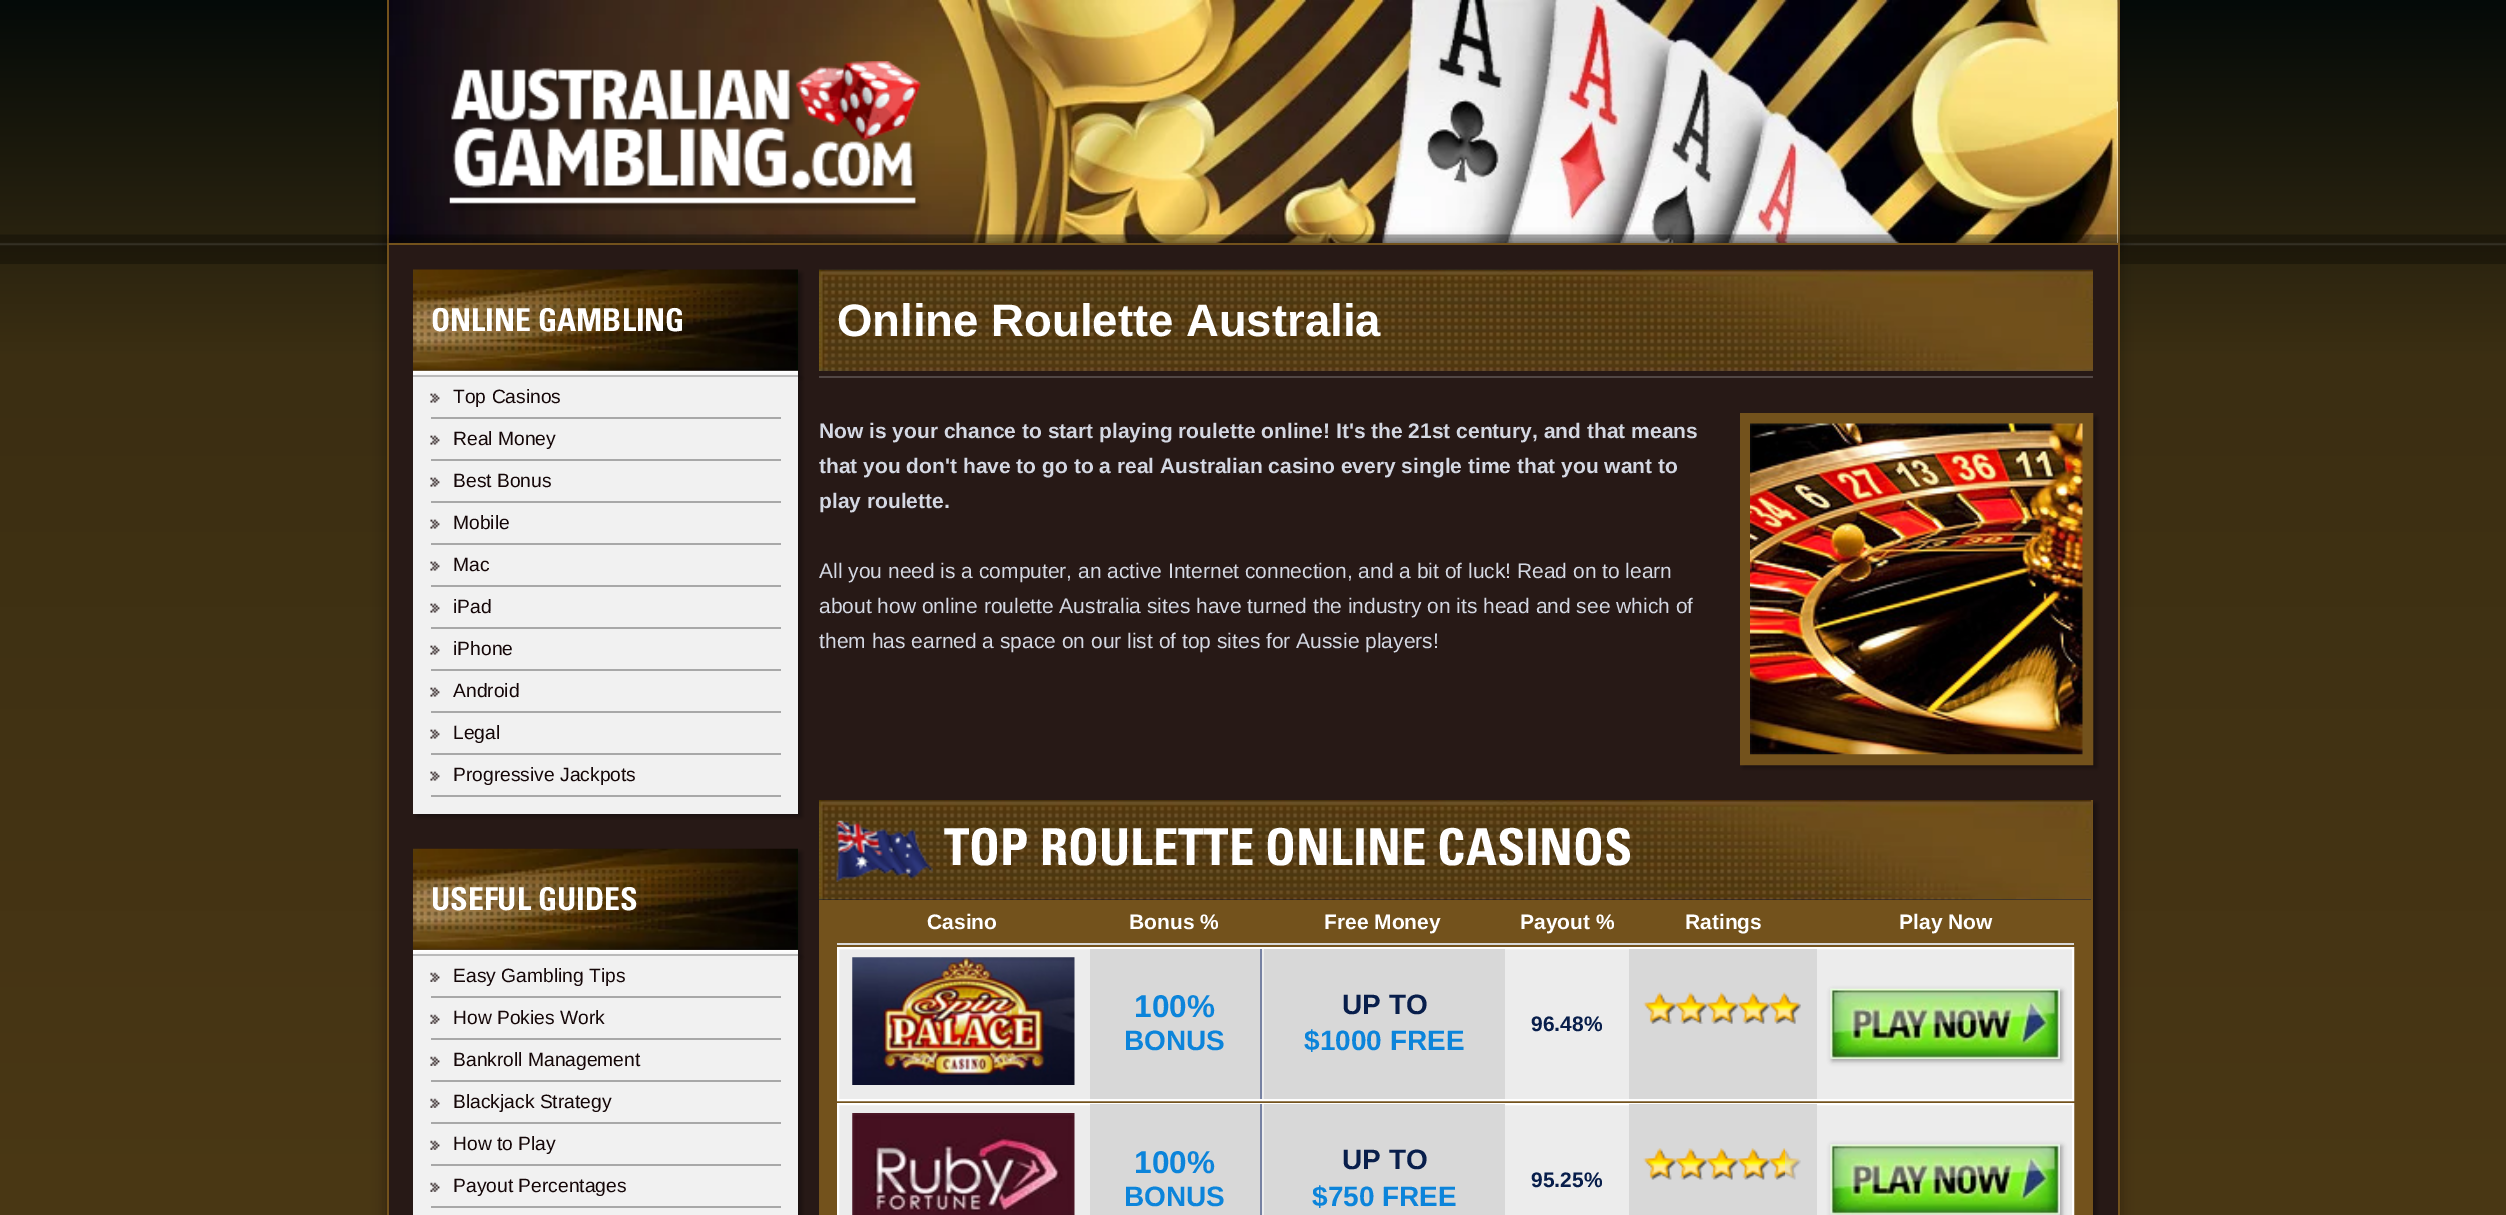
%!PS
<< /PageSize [2506 1215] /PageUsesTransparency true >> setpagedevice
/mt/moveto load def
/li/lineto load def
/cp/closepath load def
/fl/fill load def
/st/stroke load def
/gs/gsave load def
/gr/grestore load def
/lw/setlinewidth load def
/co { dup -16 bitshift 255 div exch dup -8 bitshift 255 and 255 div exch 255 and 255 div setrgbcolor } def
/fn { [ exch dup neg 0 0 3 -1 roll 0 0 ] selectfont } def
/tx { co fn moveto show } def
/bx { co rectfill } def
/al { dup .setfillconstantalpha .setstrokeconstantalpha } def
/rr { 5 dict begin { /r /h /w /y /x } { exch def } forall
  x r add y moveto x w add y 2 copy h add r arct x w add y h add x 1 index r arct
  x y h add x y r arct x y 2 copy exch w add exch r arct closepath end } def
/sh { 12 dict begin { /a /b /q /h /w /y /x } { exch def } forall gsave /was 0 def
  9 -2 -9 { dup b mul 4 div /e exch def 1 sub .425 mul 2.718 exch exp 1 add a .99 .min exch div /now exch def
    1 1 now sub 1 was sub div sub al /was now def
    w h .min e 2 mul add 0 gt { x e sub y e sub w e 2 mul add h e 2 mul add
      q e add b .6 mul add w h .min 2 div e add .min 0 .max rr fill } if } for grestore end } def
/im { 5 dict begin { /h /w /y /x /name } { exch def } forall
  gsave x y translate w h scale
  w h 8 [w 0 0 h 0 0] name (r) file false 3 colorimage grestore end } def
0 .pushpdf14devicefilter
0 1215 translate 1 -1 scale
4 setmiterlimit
0 0 2506 1215 16#FFFFFF bx
gs 0 0 mt 2506 0 li 2506 1215 li 0 1215 li cp clip newpath
<< /ShadingType 2 /ColorSpace /DeviceRGB /Coords [1253 0 1253 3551] /Extend [true true] /Function << /FunctionType 3 /Domain [0 1] /Functions [<< /FunctionType 2 /Domain [0 1] /C0 [.016 .039 .031] /C1 [.231 .18 .071] /N 1 >> << /FunctionType 2 /Domain [0 1] /C0 [.231 .18 .071] /C1 [.451 .322 .11] /N 1 >>] /Bounds [.1] /Encode [0 1 0 1] >> >> shfill gr
(media/1.raw) 0 234 2506 30 im
16#000000 co
387 0 1732 245 0 7 .35 sh
(media/2.raw) 389 0 1729 243 im
2118 0 2 245 16#73521C bx
387 0 2 245 16#73521C bx
(media/3.raw) 388 234 1730 9 im
(media/4.raw) 449 61 472 150 im
16#000000 co
387 243 1732 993 0 7 .35 sh
389 245 1729 970 16#271916 bx
387 243 1732 2 16#73521C bx
2118 243 2 972 16#73521C bx
387 243 2 972 16#73521C bx
16#000000 co
417 273 385 105 0 2.5 .33 sh
(media/5.raw) 413 269 385 102 im
413 371 385 4 16#FFFFFF bx
16#000000 co
417 378 385 439 0 2.5 .33 sh
413 377 385 437 16#F1F1F1 bx
413 375 385 2 16#BABABA bx
(media/6.raw) 430 393 10 10 im
431 417 350 2 16#A8A8A8 bx
(media/6.raw) 430 435 10 10 im
431 459 350 2 16#A8A8A8 bx
(media/6.raw) 430 477 10 10 im
431 501 350 2 16#A8A8A8 bx
(media/6.raw) 430 519 10 10 im
431 543 350 2 16#A8A8A8 bx
(media/6.raw) 430 561 10 10 im
431 585 350 2 16#A8A8A8 bx
(media/6.raw) 430 603 10 10 im
431 627 350 2 16#A8A8A8 bx
(media/6.raw) 430 645 10 10 im
431 669 350 2 16#A8A8A8 bx
(media/6.raw) 430 687 10 10 im
431 711 350 2 16#A8A8A8 bx
(media/6.raw) 430 729 10 10 im
431 753 350 2 16#A8A8A8 bx
(media/6.raw) 430 771 10 10 im
431 795 350 2 16#A8A8A8 bx
16#000000 co
417 852 385 105 0 2.5 .33 sh
(media/7.raw) 413 848 385 102 im
413 950 385 4 16#FFFFFF bx
16#000000 co
417 957 385 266 0 2.5 .33 sh
413 956 385 259 16#F1F1F1 bx
413 954 385 2 16#BABABA bx
(media/8.raw) 430 972 10 10 im
431 996 350 2 16#A8A8A8 bx
(media/8.raw) 430 1014 10 10 im
431 1038 350 2 16#A8A8A8 bx
(media/8.raw) 430 1056 10 10 im
431 1080 350 2 16#A8A8A8 bx
(media/8.raw) 430 1098 10 10 im
431 1122 350 2 16#A8A8A8 bx
(media/8.raw) 430 1140 10 10 im
431 1164 350 2 16#A8A8A8 bx
(media/8.raw) 430 1182 10 10 im
431 1206 350 2 16#A8A8A8 bx
819 376 1274 2 16#524745 bx
(media/9.raw) 819 269 1274 1 im
(media/10.raw) 819 269 1274 102 im
16#000000 co
1743 417 354 351 0 2.5 .33 sh
16#73521C co
11 lw
1745.5 418.5 342 341 rectstroke
(media/11.raw) 1750 423 333 332 im
16#000000 co
823 803 1274 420 0 2.5 .33 sh
2091 800 2 415 16#73521C bx
(media/12.raw) 819 800 1273 100 im
(media/13.raw) 819 800 1272 100 im
(media/14.raw) 836 820 97 62 im
819 900 1272 315 16#73521C bx
837 943 1237 2 16#D8D8D8 bx
16#ECECEC co
838 948 mt 2073 948 li 2073 1100 li 838 1100 li cp gs fl gr
16#FFFFFF co
2 lw
st
(media/15.raw) 852 957 223 128 im
1090 949 170 150 16#D8D8D8 bx
1260 949 2 150 16#7681A2 bx
1264 949 241 150 16#D8D8D8 bx
1629 949 188 150 16#D8D8D8 bx
(media/16.raw) 1644 992 157 32 im
(media/17.raw) 1643 992 158 32 im
16#000000 co
1832 991 230 70 0 2.5 .33 sh
(media/18.raw) 1830 988 230 71 im
16#ECECEC co
838 1104 mt 2073 1104 li 2073 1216 li 838 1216 li cp gs fl gr
16#FFFFFF co
st
(media/19.raw) 852 1113 223 102 im
1090 1104 170 111 16#D8D8D8 bx
1260 1104 2 111 16#7681A2 bx
1264 1104 241 111 16#D8D8D8 bx
1262 1104 2 1 16#EDEDED bx
1629 1104 188 111 16#D8D8D8 bx
(media/20.raw) 1644 1148 157 32 im
(media/21.raw) 1643 1148 142 32 im
16#000000 co
1832 1146 230 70 0 2.5 .33 sh
(media/22.raw) 1830 1144 230 71 im
(ONLINE GAMBLING) 431 331 /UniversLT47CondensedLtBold-Bold 31.5 16#FFFFFF tx
(Top Casinos) 453 403 /LiberationSans-Regular 19.25 16#150708 tx
(Real Money) 453 445 /LiberationSans-Regular 19.25 16#150708 tx
(Best Bonus) 453 487 /LiberationSans-Regular 19.25 16#150708 tx
(Mobile) 453 529 /LiberationSans-Regular 19.25 16#150708 tx
(Mac) 453 571 /LiberationSans-Regular 19.25 16#150708 tx
(iPad) 453 613 /LiberationSans-Regular 19.25 16#150708 tx
(iPhone) 453 655 /LiberationSans-Regular 19.25 16#150708 tx
(Android) 453 697 /LiberationSans-Regular 19.25 16#150708 tx
(Legal) 453 739 /LiberationSans-Regular 19.25 16#150708 tx
(Progressive Jackpots) 453 781 /LiberationSans-Regular 19.25 16#150708 tx
(USEFUL GUIDES) 431 910 /UniversLT47CondensedLtBold-Bold 31.5 16#FFFFFF tx
(Easy Gambling Tips) 453 982 /LiberationSans-Regular 19.25 16#150708 tx
(How Pokies Work) 453 1024 /LiberationSans-Regular 19.25 16#150708 tx
(Bankroll Management) 453 1066 /LiberationSans-Regular 19.25 16#150708 tx
(Blackjack Strategy) 453 1108 /LiberationSans-Regular 19.25 16#150708 tx
(How to Play) 453 1150 /LiberationSans-Regular 19.25 16#150708 tx
(Payout Percentages) 453 1192 /LiberationSans-Regular 19.25 16#150708 tx
(Online Roulette Australia) 837 336 /LiberationSans-Bold 45.5 16#FFFFFF tx
(Now is your chance to start playing roulette online! It's the 21st century, and that means) 819 438 /LiberationSans-Bold 21 16#D4D8E3 tx
(that you don't have to go to a real Australian casino every single time that you want to) 819 473 /LiberationSans-Bold 21 16#D4D8E3 tx
(play roulette.) 819 508 /LiberationSans-Bold 21 16#D4D8E3 tx
(All you need is a computer, an active Internet connection, and a bit of luck! Read on to learn) 819 578 /LiberationSans-Regular 21 16#D4D8E3 tx
(about how online roulette Australia sites have turned the industry on its head and see which of) 819 613 /LiberationSans-Regular 21 16#D4D8E3 tx
(them has earned a space on our list of top sites for Aussie players!) 819 648 /LiberationSans-Regular 21 16#D4D8E3 tx
(TOP ROULETTE ONLINE CASINOS) 944 865 /UniversLT47CondensedLtBold-Bold 50.75 16#FFFFFF tx
(Casino) 927 929 /LiberationSans-Bold 21 16#FFFFFF tx
(Bonus %) 1129 929 /LiberationSans-Bold 21 16#FFFFFF tx
(Free Money) 1324 929 /LiberationSans-Bold 21 16#FFFFFF tx
(Payout %) 1520 929 /LiberationSans-Bold 21 16#FFFFFF tx
(Ratings) 1685 929 /LiberationSans-Bold 21 16#FFFFFF tx
(Play Now) 1899 929 /LiberationSans-Bold 21 16#FFFFFF tx
(100%) 1134 1017 /LiberationSans-Bold 31.5 16#0C84DA tx
(BONUS) 1124 1050 /LiberationSans-Bold 28 16#0C84DA tx
(UP TO) 1342 1014 /LiberationSans-Bold 28 16#081E4B tx
($1000 FREE) 1304 1050 /LiberationSans-Bold 28 16#0C84DA tx
(96.48%) 1531 1031 /LiberationSans-Bold 21 16#081E4B tx
(100%) 1134 1173 /LiberationSans-Bold 31.5 16#0C84DA tx
(BONUS) 1124 1206 /LiberationSans-Bold 28 16#0C84DA tx
(UP TO) 1342 1169 /LiberationSans-Bold 28 16#081E4B tx
($750 FREE) 1312 1206 /LiberationSans-Bold 28 16#0C84DA tx
(95.25%) 1531 1187 /LiberationSans-Bold 21 16#081E4B tx
.poppdf14devicefilter showpage
